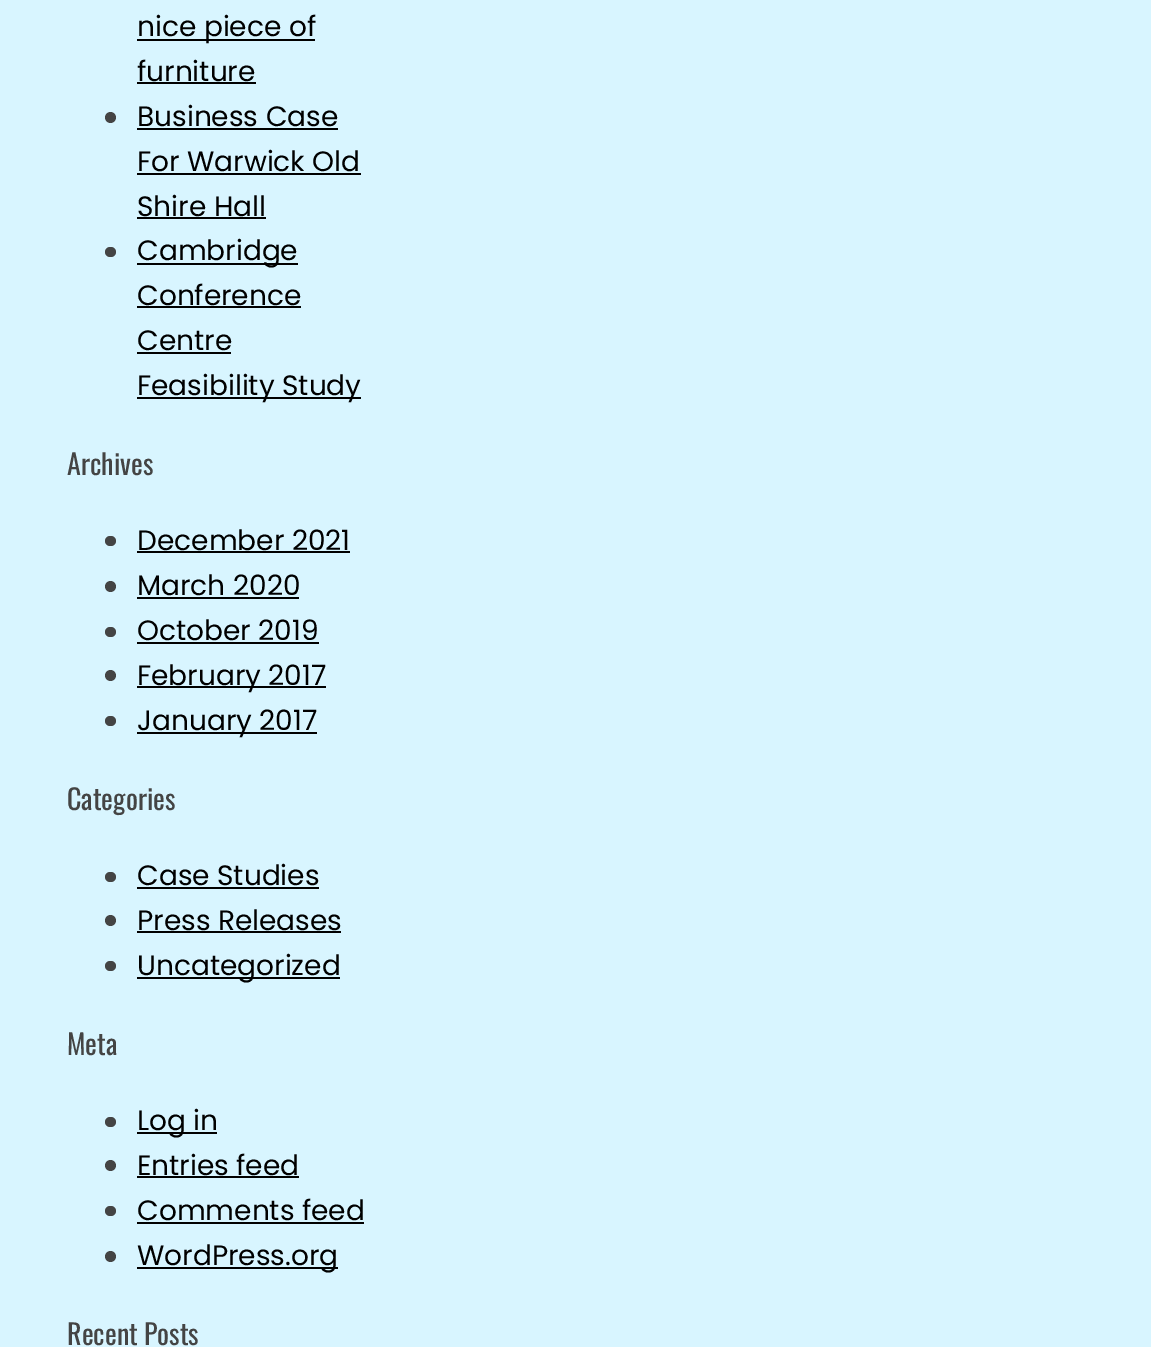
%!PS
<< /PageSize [1151 1347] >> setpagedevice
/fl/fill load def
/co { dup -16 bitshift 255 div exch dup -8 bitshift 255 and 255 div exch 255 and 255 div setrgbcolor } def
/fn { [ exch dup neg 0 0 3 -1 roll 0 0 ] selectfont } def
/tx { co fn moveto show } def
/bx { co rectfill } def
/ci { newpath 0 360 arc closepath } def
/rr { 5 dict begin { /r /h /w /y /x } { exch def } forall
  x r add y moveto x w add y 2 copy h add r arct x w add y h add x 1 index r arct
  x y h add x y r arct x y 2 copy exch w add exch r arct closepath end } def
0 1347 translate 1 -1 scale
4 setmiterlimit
0 0 1151 1347 16#D8F5FF bx
137 39 178 2 16#000000 bx
137 82 119 2 16#000000 bx
16#444444 co
110.5 117.5 5.5 ci fl
137 128 201 2 16#000000 bx
137 173 224 2 16#000000 bx
137 217 129 2 16#000000 bx
16#444444 co
105 247 11 10 5 rr fl
137 263 161 2 16#000000 bx
137 306 164 2 16#000000 bx
137 352 94 2 16#000000 bx
137 397 224 2 16#000000 bx
16#444444 co
105 536 11 10 5 rr fl
137 551 213 2 16#000000 bx
16#444444 co
110.5 586.5 5.5 ci fl
137 597 162 2 16#000000 bx
16#444444 co
105 627 11 10 5 rr fl
137 642 182 2 16#000000 bx
16#444444 co
110.5 675.5 5.5 ci fl
137 686 189 2 16#000000 bx
16#444444 co
105 716 11 10 5 rr fl
137 732 180 2 16#000000 bx
16#444444 co
105 872 11 10 5 rr fl
137 887 182 2 16#000000 bx
16#444444 co
110.5 920.5 5.5 ci fl
137 931 204 2 16#000000 bx
16#444444 co
105 961 11 10 5 rr fl
137 977 203 2 16#000000 bx
16#444444 co
105 1117 11 10 5 rr fl
137 1132 80 2 16#000000 bx
16#444444 co
110.5 1165.5 5.5 ci fl
137 1176 162 2 16#000000 bx
16#444444 co
105 1206 11 10 5 rr fl
137 1222 227 2 16#000000 bx
16#444444 co
110.5 1256.5 5.5 ci fl
137 1267 201 2 16#000000 bx
(nice piece of) 137 36 /Poppins-Regular 28 16#000000 tx
(furniture) 137 81 /Poppins-Regular 28 16#000000 tx
(Business Case) 137 126 /Poppins-Regular 28 16#000000 tx
(For Warwick Old) 137 171 /Poppins-Regular 28 16#000000 tx
(Shire Hall) 137 216 /Poppins-Regular 28 16#000000 tx
(Cambridge) 137 260 /Poppins-Regular 28 16#000000 tx
(Conference) 137 305 /Poppins-Regular 28 16#000000 tx
(Centre) 137 350 /Poppins-Regular 28 16#000000 tx
(Feasibility Study) 137 395 /Poppins-Regular 28 16#000000 tx
(Archives) 67 475 /Oswald-Regular 28 16#444444 tx
(December 2021) 137 550 /Poppins-Regular 28 16#000000 tx
(March 2020) 137 595 /Poppins-Regular 28 16#000000 tx
(October 2019) 137 640 /Poppins-Regular 28 16#000000 tx
(February 2017) 137 685 /Poppins-Regular 28 16#000000 tx
(January 2017) 137 730 /Poppins-Regular 28 16#000000 tx
(Categories) 67 810 /Oswald-Regular 28 16#444444 tx
(Case Studies) 137 885 /Poppins-Regular 28 16#000000 tx
(Press Releases) 137 930 /Poppins-Regular 28 16#000000 tx
(Uncategorized) 137 975 /Poppins-Regular 28 16#000000 tx
(Meta) 67 1055 /Oswald-Regular 28 16#444444 tx
(Log in) 137 1130 /Poppins-Regular 28 16#000000 tx
(Entries feed) 137 1175 /Poppins-Regular 28 16#000000 tx
(Comments feed) 137 1220 /Poppins-Regular 28 16#000000 tx
(WordPress.org) 137 1265 /Poppins-Regular 28 16#000000 tx
(Recent Posts) 67 1345 /Oswald-Regular 28 16#444444 tx
showpage
